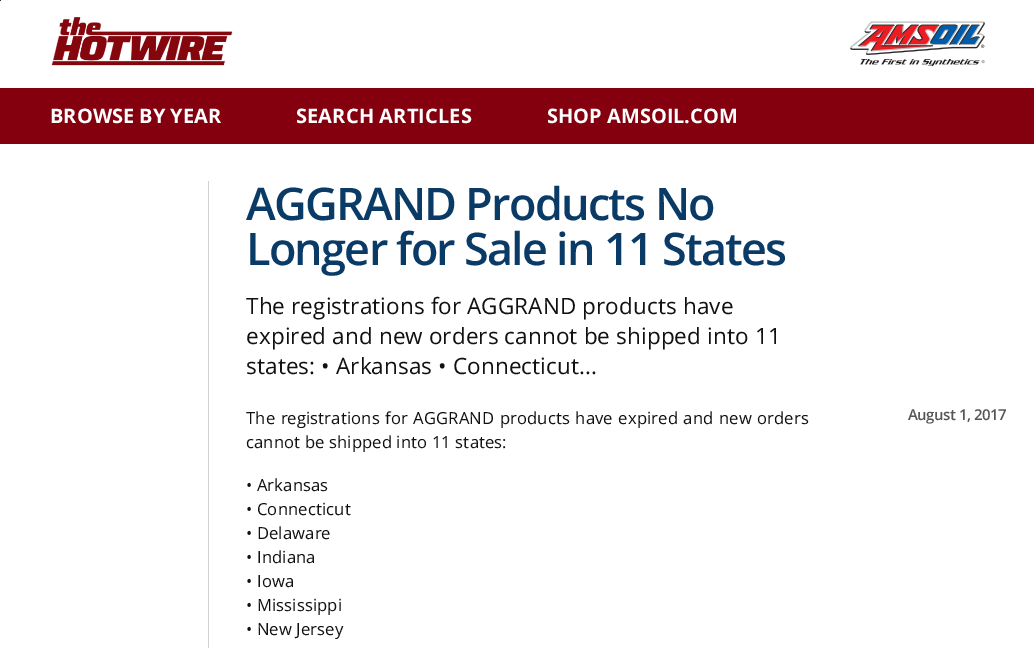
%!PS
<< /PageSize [1034 648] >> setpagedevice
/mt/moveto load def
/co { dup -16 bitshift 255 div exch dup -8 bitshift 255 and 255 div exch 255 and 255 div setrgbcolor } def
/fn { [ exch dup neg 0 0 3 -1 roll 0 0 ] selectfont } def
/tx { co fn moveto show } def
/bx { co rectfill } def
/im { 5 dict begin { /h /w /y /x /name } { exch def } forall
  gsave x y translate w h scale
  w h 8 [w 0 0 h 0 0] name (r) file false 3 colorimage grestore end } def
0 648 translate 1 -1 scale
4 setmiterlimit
0 0 1034 648 16#FFFFFF bx
0 0 1 1 16#333333 bx
0 88 1034 56 16#84000E bx
(media/1.raw) 51 17 182 49 im
(media/2.raw) 850 21 135 45 im
208 181 1 467 16#D0D0D0 bx
(BROWSE BY YEAR) 50 123 /OpenSans-Bold 20 16#FFFFFF tx
296 123 mt .12 0 (SEARCH ARTICLES) ashow
(SHOP AMSOIL.COM) 547 123 /OpenSans-Bold 20 16#FFFFFF tx
/OpenSans-SemiBold 45 fn
16#093B66 co
246 220 mt -1.75 0 (AGGRAND Products No) ashow
246 265 mt -1.75 0 (Longer for Sale in 11 States) ashow
/OpenSans-Regular 22.5 fn
16#111111 co
246 314 mt .12 0 (The registrations for AGGRAND products have) ashow
246 344 mt .12 0 (expired and new orders cannot be shipped into 11) ashow
246 374 mt .12 0 (states: • Arkansas • Connecticut...) ashow
/OpenSans-SemiBold 15 fn
16#565656 co
908 420 mt -.5 0 (August 1, 2017) ashow
/OpenSans-Regular 16.65 fn
16#111111 co
246 424 mt 1 0 32 .12 0 (The registrations for AGGRAND products have expired and new orders) awidthshow
246 448 mt .12 0 (cannot be shipped into 11 states:) ashow
246 491 mt .12 0 (• Arkansas) ashow
246 515 mt .12 0 (• Connecticut) ashow
246 539 mt .12 0 (• Delaware) ashow
246 563 mt .12 0 (• Indiana) ashow
246 587 mt .12 0 (• Iowa) ashow
246 611 mt .12 0 (• Mississippi) ashow
246 635 mt .12 0 (• New Jersey) ashow
showpage
